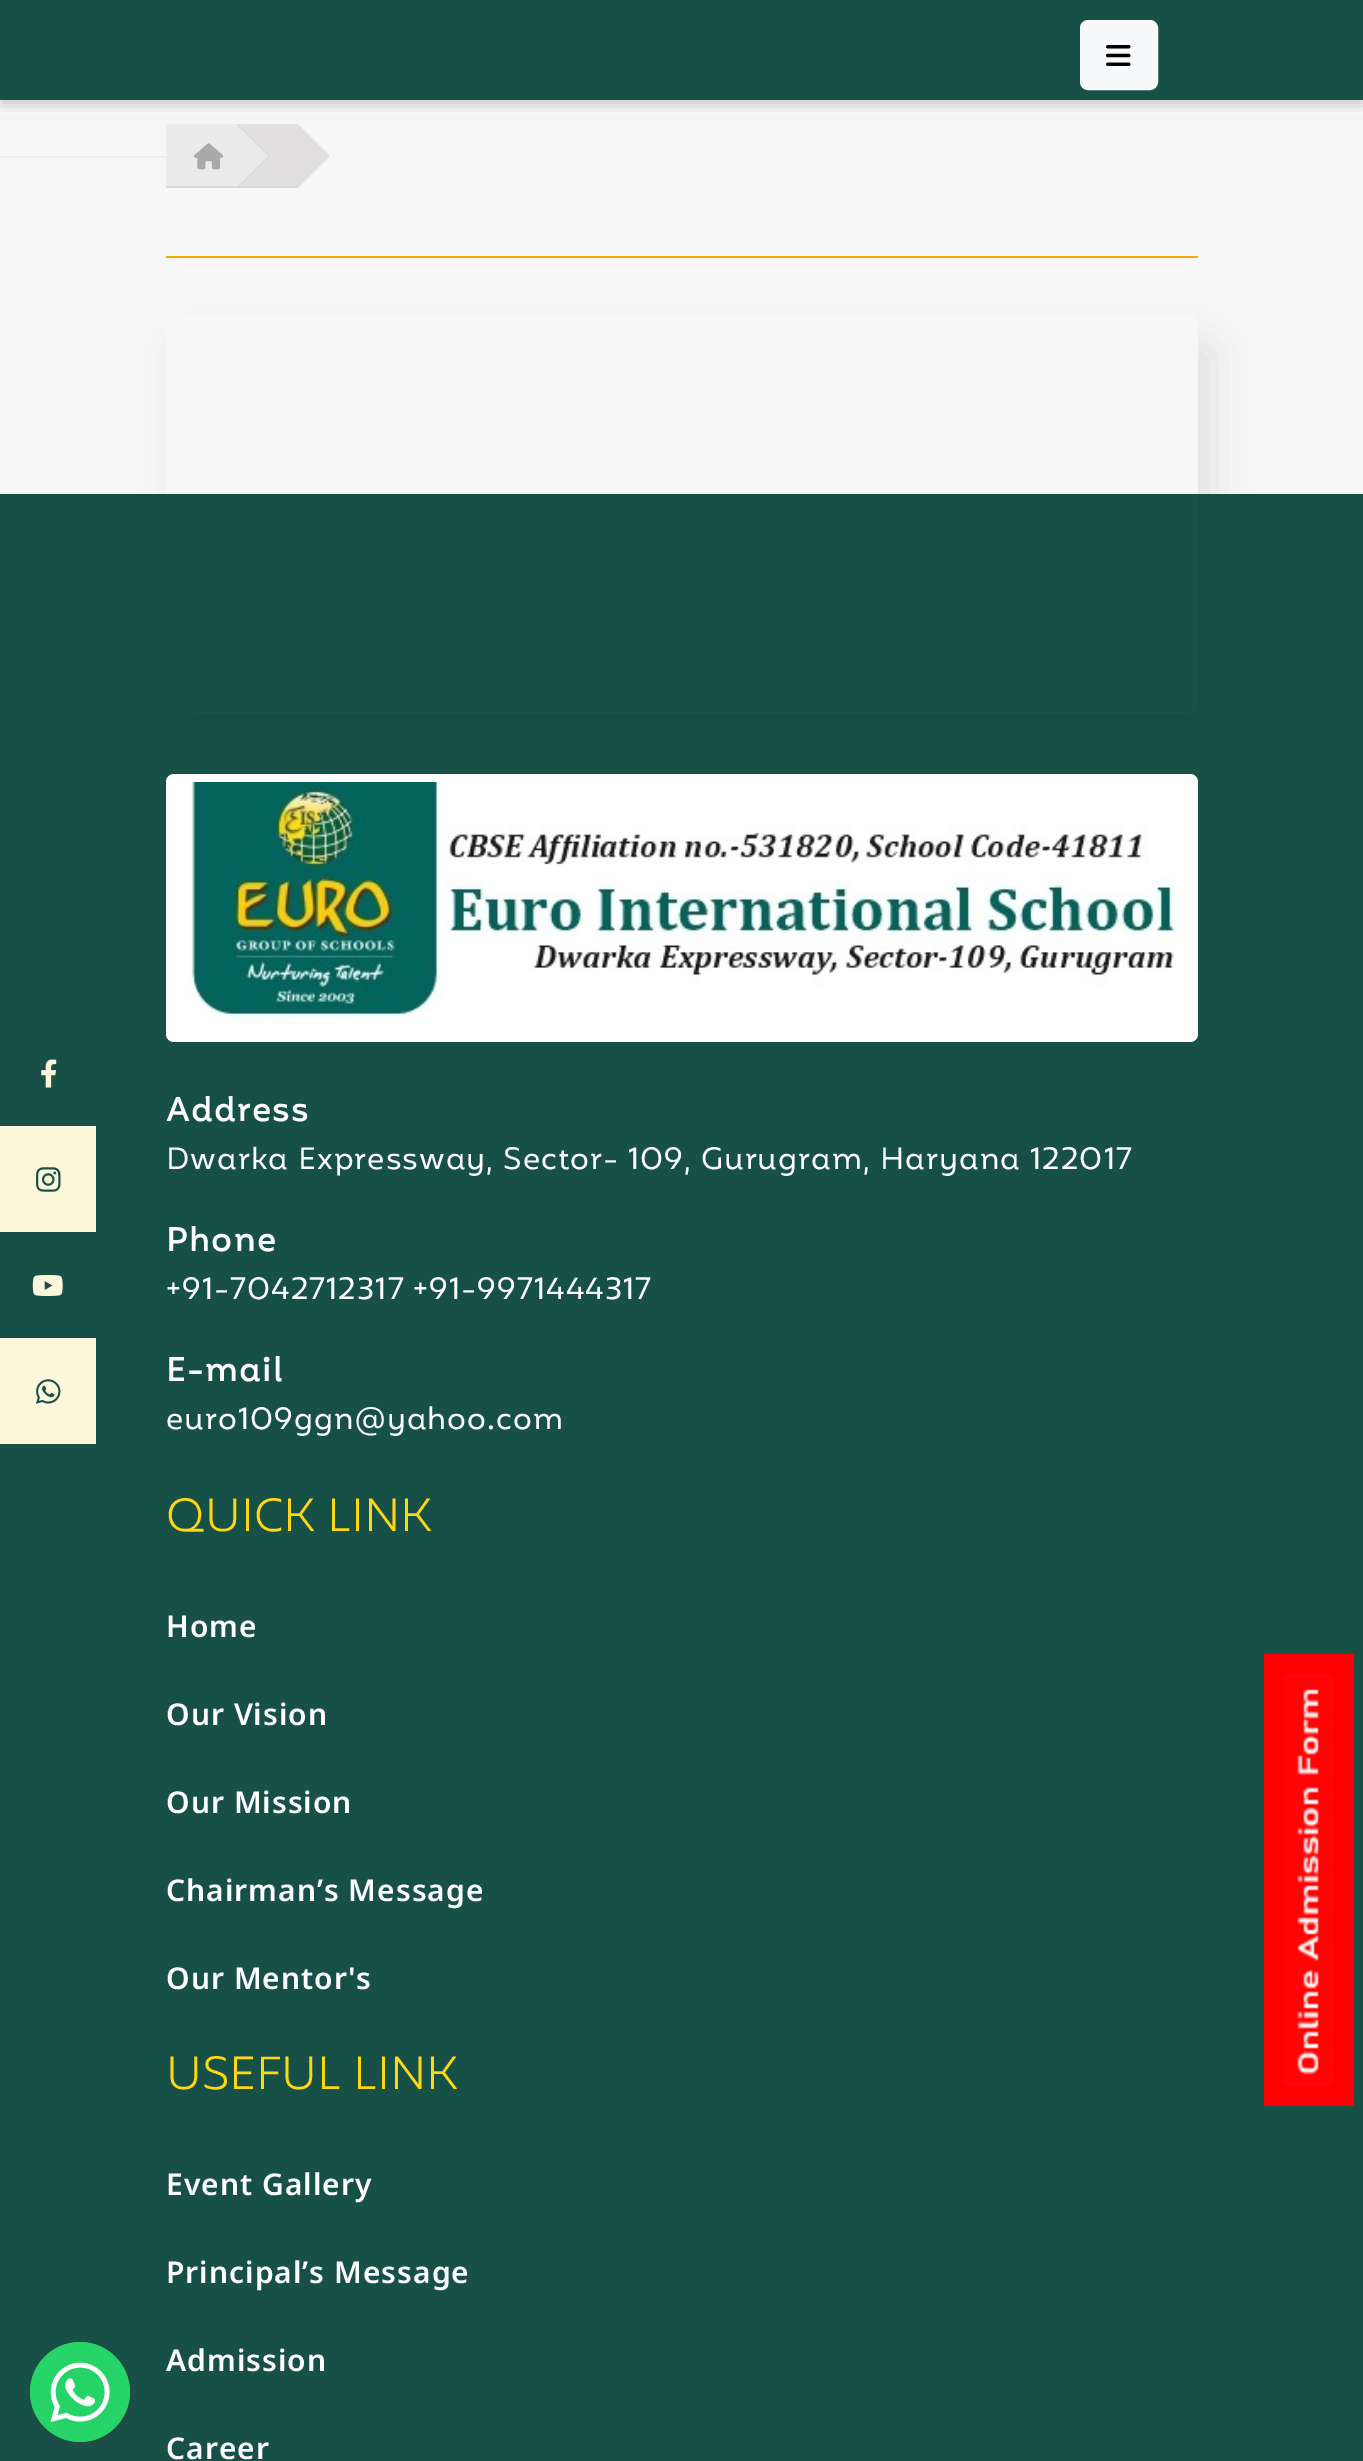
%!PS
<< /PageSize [1363 2461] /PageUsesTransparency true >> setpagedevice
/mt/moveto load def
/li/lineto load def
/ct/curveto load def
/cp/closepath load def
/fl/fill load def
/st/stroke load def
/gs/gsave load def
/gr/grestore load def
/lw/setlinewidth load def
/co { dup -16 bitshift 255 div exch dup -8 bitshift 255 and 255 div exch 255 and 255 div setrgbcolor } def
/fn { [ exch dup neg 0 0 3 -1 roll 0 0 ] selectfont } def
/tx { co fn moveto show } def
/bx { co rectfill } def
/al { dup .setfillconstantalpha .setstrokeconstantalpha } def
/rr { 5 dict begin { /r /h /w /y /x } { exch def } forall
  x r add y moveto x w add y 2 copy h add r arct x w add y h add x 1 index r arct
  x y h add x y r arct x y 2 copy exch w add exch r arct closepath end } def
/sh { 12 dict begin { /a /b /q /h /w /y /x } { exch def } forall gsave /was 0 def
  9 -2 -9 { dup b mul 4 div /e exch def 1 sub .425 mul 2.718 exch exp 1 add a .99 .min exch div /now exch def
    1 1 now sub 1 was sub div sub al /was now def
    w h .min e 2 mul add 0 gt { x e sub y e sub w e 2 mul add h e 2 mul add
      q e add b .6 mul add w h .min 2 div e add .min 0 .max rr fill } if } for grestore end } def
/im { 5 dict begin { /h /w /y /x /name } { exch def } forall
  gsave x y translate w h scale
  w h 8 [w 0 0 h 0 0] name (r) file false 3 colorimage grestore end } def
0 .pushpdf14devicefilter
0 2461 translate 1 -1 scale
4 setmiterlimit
0 0 1363 2461 16#FFFFFF bx
0 494 1363 1967 16#175047 bx
(media/1.raw) 41 1059 16 29 im
0 1126 96 106 16#FCF6DA bx
(media/2.raw) 36 1167 25 25 im
(media/3.raw) 32 1275 31 21 im
0 1338 96 106 16#FCF6DA bx
(media/4.raw) 36 1379 25 25 im
0 116 1363 378 16#F7F7F7 bx
166 124 72 62 16#EBEBEB bx
166 186 132 2 16#D9D9D9 bx
238 124 60 62 16#E1DFDF bx
16#D9D9D9 co
238 188 mt 238 124 li 270 156 li cp fl
16#EBEBEB co
238 186 mt 238 126 li 268 156 li cp fl
16#E1DFDF co
298 188 mt 298 124 li 330 156 li cp fl
16#3A393A co
0 6 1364 100 0 8 .28 sh
0 0 1363 100 16#175047 bx
16#F8F9FA co
1081 21 76 68 7 rr gs fl gr
2 lw
st
(media/5.raw) 1106 45 25 21 im
0 156 166 2 16#EDEDED bx
(media/6.raw) 194 143 30 27 im
166 256 1032 2 16#F2A900 bx
16#FFFFFF co
166 774 1032 268 8 rr fl
(media/7.raw) 184 782 993 242 im
gs
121 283 mt 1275 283 li 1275 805 li 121 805 li cp 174 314 mt 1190 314 li 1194.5 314 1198 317.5 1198 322 ct 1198 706 li 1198 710.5 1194.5 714 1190 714 ct 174 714 li 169.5 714 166 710.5 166 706 ct 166 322 li 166 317.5 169.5 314 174 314 ct cp eoclip newpath
16#151515 co
182 344 1032 400 8 20 .09 sh
gr
1264 1654 90 452 16#FF0000 bx
(media/8.raw) 1284 1674 50 412 im
16#3C3C3C co
32 2344 100 100 50 4 .4 sh
(media/9.raw) 30 2342 100 100 im
/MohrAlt-Bold 32 fn
16#FFFFFF co
166 1121 mt 2 0 (Address) ashow
/MohrAlt-Regular 30 fn
166 1169 mt 1 0 (Dwarka Expressway, Sector- 109, Gurugram, Haryana 122017) ashow
/MohrAlt-Bold 32 fn
166 1251 mt 2 0 (Phone) ashow
/MohrAlt-Regular 30 fn
166 1299 mt 1 0 (+91-7042712317 +91-9971444317) ashow
/MohrAlt-Bold 32 fn
166 1381 mt 2 0 (E-mail) ashow
/MohrAlt-Regular 30 fn
166 1429 mt 1 0 (euro109ggn@yahoo.com) ashow
(QUICK LINK) 166 1531 /MohrAlt-Light 45 16#FFD712 tx
/NotoSans-SemiBold 30 fn
16#FFFFFF co
166 1637 mt 1 0 (Home) ashow
166 1725 mt 1 0 (Our Vision) ashow
166 1813 mt 1 0 (Our Mission) ashow
166 1901 mt 1 0 (Chairman’s Message) ashow
166 1989 mt 1 0 (Our Mentor's) ashow
(USEFUL LINK) 166 2089 /MohrAlt-Light 45 16#FFD712 tx
/NotoSans-SemiBold 30 fn
16#FFFFFF co
166 2195 mt 1 0 (Event Gallery) ashow
166 2283 mt 1 0 (Principal’s Message) ashow
166 2371 mt 1 0 (Admission) ashow
166 2459 mt 1 0 (Career) ashow
.poppdf14devicefilter showpage
